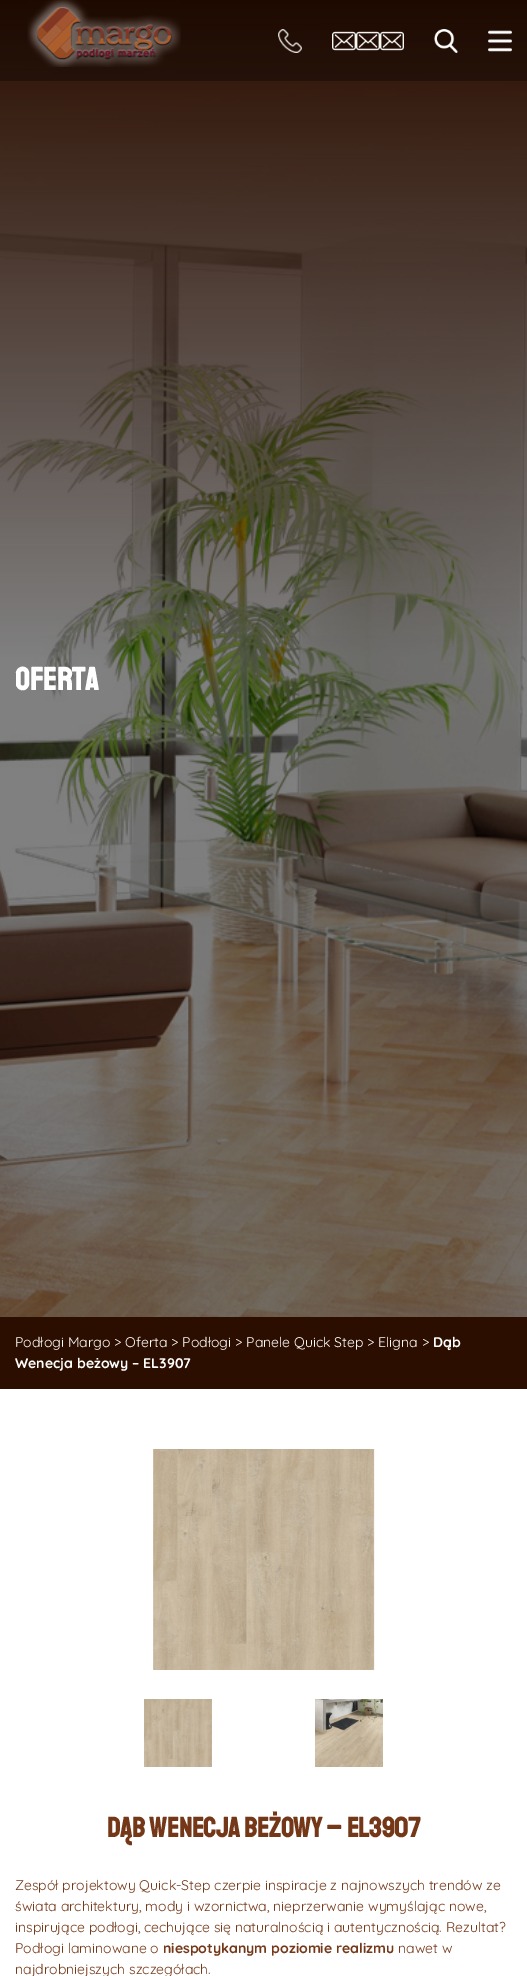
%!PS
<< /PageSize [527 1976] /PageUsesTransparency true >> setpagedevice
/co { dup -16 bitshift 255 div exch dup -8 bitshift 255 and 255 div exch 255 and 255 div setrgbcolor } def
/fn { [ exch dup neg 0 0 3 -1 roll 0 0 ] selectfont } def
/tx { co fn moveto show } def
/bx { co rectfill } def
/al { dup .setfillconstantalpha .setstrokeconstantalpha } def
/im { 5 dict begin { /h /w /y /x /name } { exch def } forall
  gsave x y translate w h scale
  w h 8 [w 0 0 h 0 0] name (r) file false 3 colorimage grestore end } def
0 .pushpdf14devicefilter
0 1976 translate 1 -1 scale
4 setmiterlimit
0 0 527 1976 16#FFFFFF bx
(media/8.raw) 0 0 527 1317 im
0.33 al
0 0 527 81 16#000000 bx
1 al
(media/1.raw) 27 0 154 67 im
(media/2.raw) 278 29 24 24 im
(media/3.raw) 332 31 24 20 im
(media/4.raw) 356 31 24 20 im
(media/5.raw) 380 31 24 20 im
(media/6.raw) 434 29 24 24 im
(media/7.raw) 488 30 24 22 im
0 1317 527 72 16#2C0E00 bx
(media/9.raw) 153 1449 222 221 im
(media/10.raw) 144 1699 68 68 im
(media/11.raw) 315 1699 68 68 im
(OFERTA) 15 690 /Staatliches-Bold 32 16#FFFFFF tx
(Podłogi Margo) 15 1347 /Quicksand-Regular 14 16#FFFFFF tx
(> Oferta) 114 1347 /Quicksand-Regular 14 16#FFFFFF tx
(> Podłogi) 171 1347 /Quicksand-Regular 14 16#FFFFFF tx
(> Panele Quick Step) 235 1347 /Quicksand-Regular 14 16#FFFFFF tx
(> Eligna) 367 1347 /Quicksand-Regular 14 16#FFFFFF tx
(>) 422 1347 /Quicksand-Regular 14 16#FFFFFF tx
(Dąb) 433 1347 /Quicksand-Bold 14 16#FFFFFF tx
(Wenecja beżowy – EL3907) 15 1368 /Quicksand-Bold 14 16#FFFFFF tx
(Dąb Wenecja beżowy – EL3907) 107 1837 /Staatliches-Bold 28 16#743718 tx
(Zespół projektowy Quick-Step czerpie inspiracje z najnowszych trendów ze) 15 1890 /Quicksand-Regular 14 16#743718 tx
(świata architektury, mody i wzornictwa, nieprzerwanie wymyślając nowe,) 15 1911 /Quicksand-Regular 14 16#743718 tx
(inspirujące podłogi, cechujące się naturalnością i autentycznością. Rezultat?) 15 1932 /Quicksand-Regular 14 16#743718 tx
(Podłogi laminowane o) 15 1953 /Quicksand-Regular 14 16#743718 tx
(niespotykanym poziomie realizmu) 163 1953 /Quicksand-Bold 14 16#743718 tx
(nawet w) 398 1953 /Quicksand-Regular 14 16#743718 tx
(najdrobniejszych szczegółach.) 15 1974 /Quicksand-Regular 14 16#743718 tx
.poppdf14devicefilter showpage
